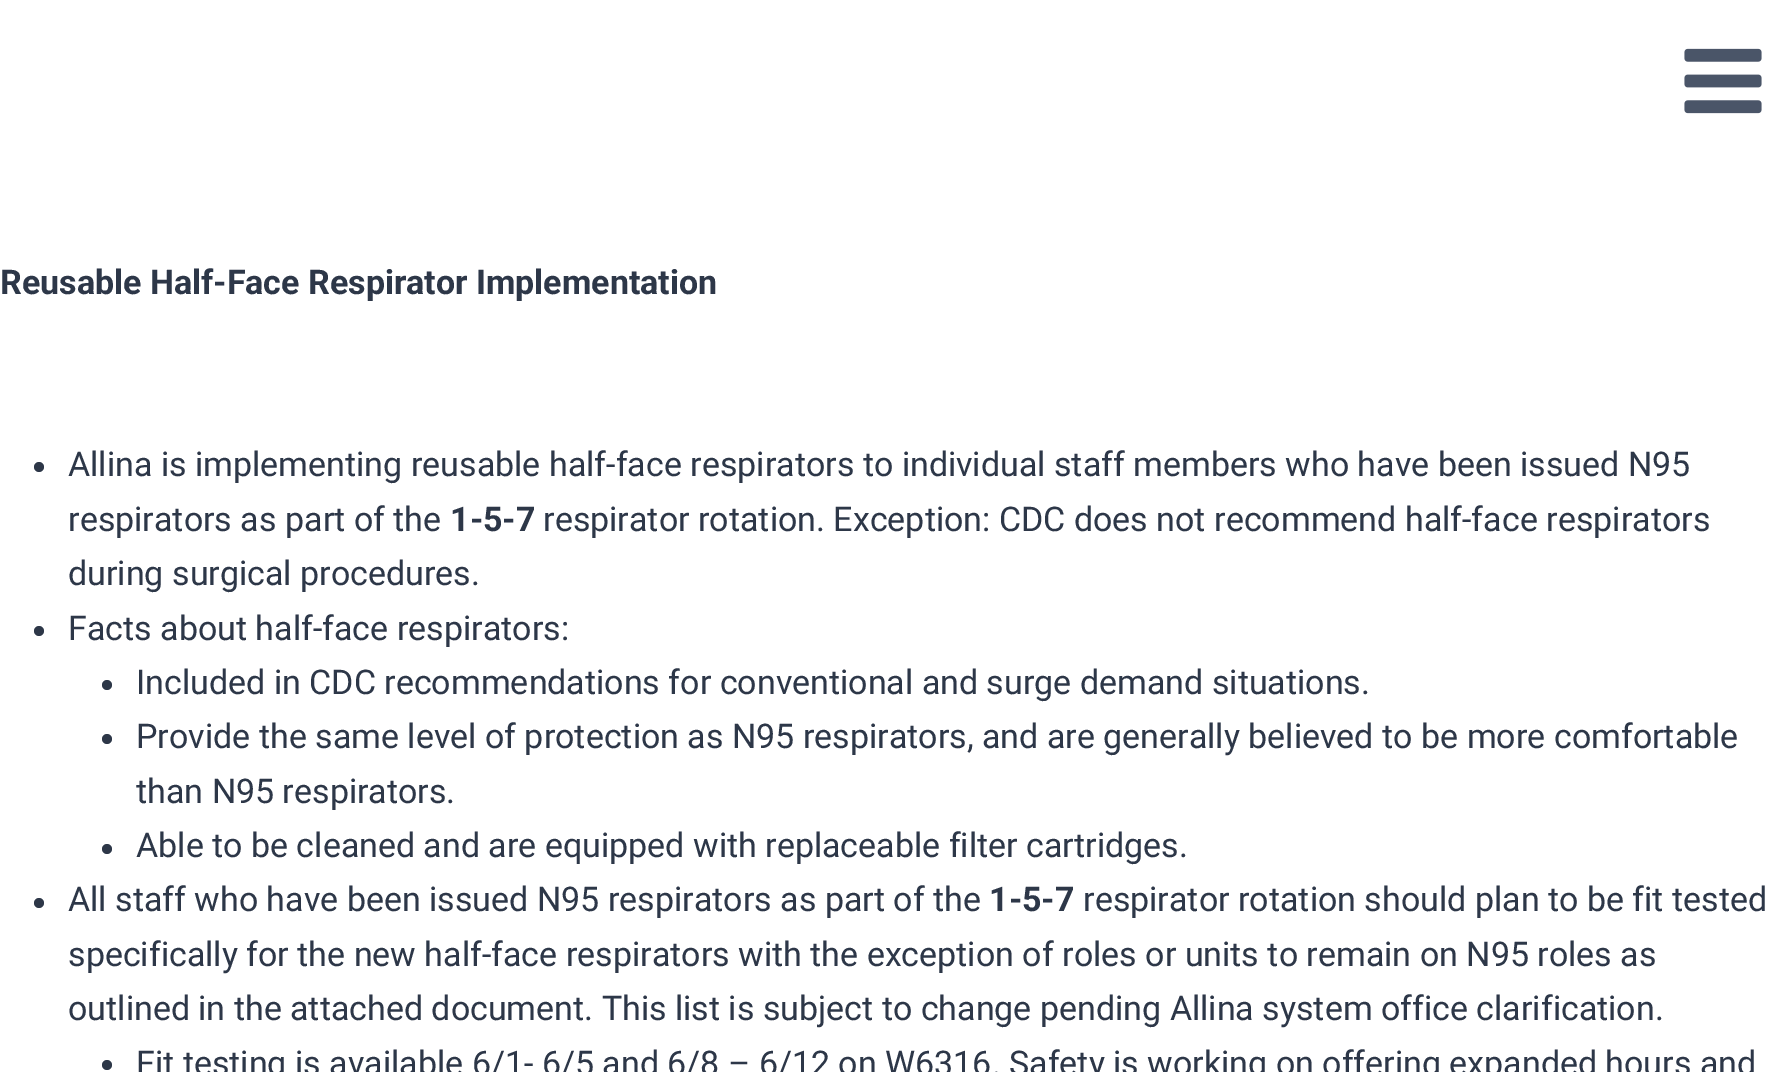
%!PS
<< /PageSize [1784 1072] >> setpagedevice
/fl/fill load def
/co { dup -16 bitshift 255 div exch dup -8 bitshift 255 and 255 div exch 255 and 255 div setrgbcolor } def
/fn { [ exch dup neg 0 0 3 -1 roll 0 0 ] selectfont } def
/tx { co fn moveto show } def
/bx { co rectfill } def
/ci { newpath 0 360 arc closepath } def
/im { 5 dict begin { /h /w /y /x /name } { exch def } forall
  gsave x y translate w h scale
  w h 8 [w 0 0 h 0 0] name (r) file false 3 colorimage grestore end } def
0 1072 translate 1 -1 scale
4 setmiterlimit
0 0 1784 1072 16#FFFFFF bx
(media/1.raw) 1684 48 78 66 im
16#2D3748 co
39 467 5 ci fl
39 631 5 ci fl
107 685 5 ci fl
107 739 5 ci fl
107 849 5 ci fl
39 903 5 ci fl
107 1065 5 ci fl
(Reusable Half-Face Respirator Implementation) 0 294 /Roboto-Bold 34 16#2D3748 tx
(Allina is implementing reusable half-face respirators to individual staff members who have been issued N95) 68 476 /Roboto-Regular 34 16#2D3748 tx
(respirators as part of the) 68 531 /Roboto-Regular 34 16#2D3748 tx
(1-5-7) 450 531 /Roboto-Bold 34 16#2D3748 tx
(respirator rotation. Exception: CDC does not recommend half-face respirators) 543 531 /Roboto-Regular 34 16#2D3748 tx
(during surgical procedures.) 68 585 /Roboto-Regular 34 16#2D3748 tx
(Facts about half-face respirators:) 68 640 /Roboto-Regular 34 16#2D3748 tx
(Included in CDC recommendations for conventional and surge demand situations.) 136 694 /Roboto-Regular 34 16#2D3748 tx
(Provide the same level of protection as N95 respirators, and are generally believed to be more comfortable) 136 748 /Roboto-Regular 34 16#2D3748 tx
(than N95 respirators.) 136 803 /Roboto-Regular 34 16#2D3748 tx
(Able to be cleaned and are equipped with replaceable filter cartridges.) 136 857 /Roboto-Regular 34 16#2D3748 tx
(All staff who have been issued N95 respirators as part of the) 68 911 /Roboto-Regular 34 16#2D3748 tx
(1-5-7) 989 911 /Roboto-Bold 34 16#2D3748 tx
(respirator rotation should plan to be fit tested) 1083 911 /Roboto-Regular 34 16#2D3748 tx
(specifically for the new half-face respirators with the exception of roles or units to remain on N95 roles as) 68 966 /Roboto-Regular 34 16#2D3748 tx
(outlined in the attached document. This list is subject to change pending Allina system office clarification.) 68 1020 /Roboto-Regular 34 16#2D3748 tx
(Fit testing is available 6/1- 6/5 and 6/8 – 6/12 on W6316. Safety is working on offering expanded hours and) 136 1075 /Roboto-Regular 34 16#2D3748 tx
showpage
